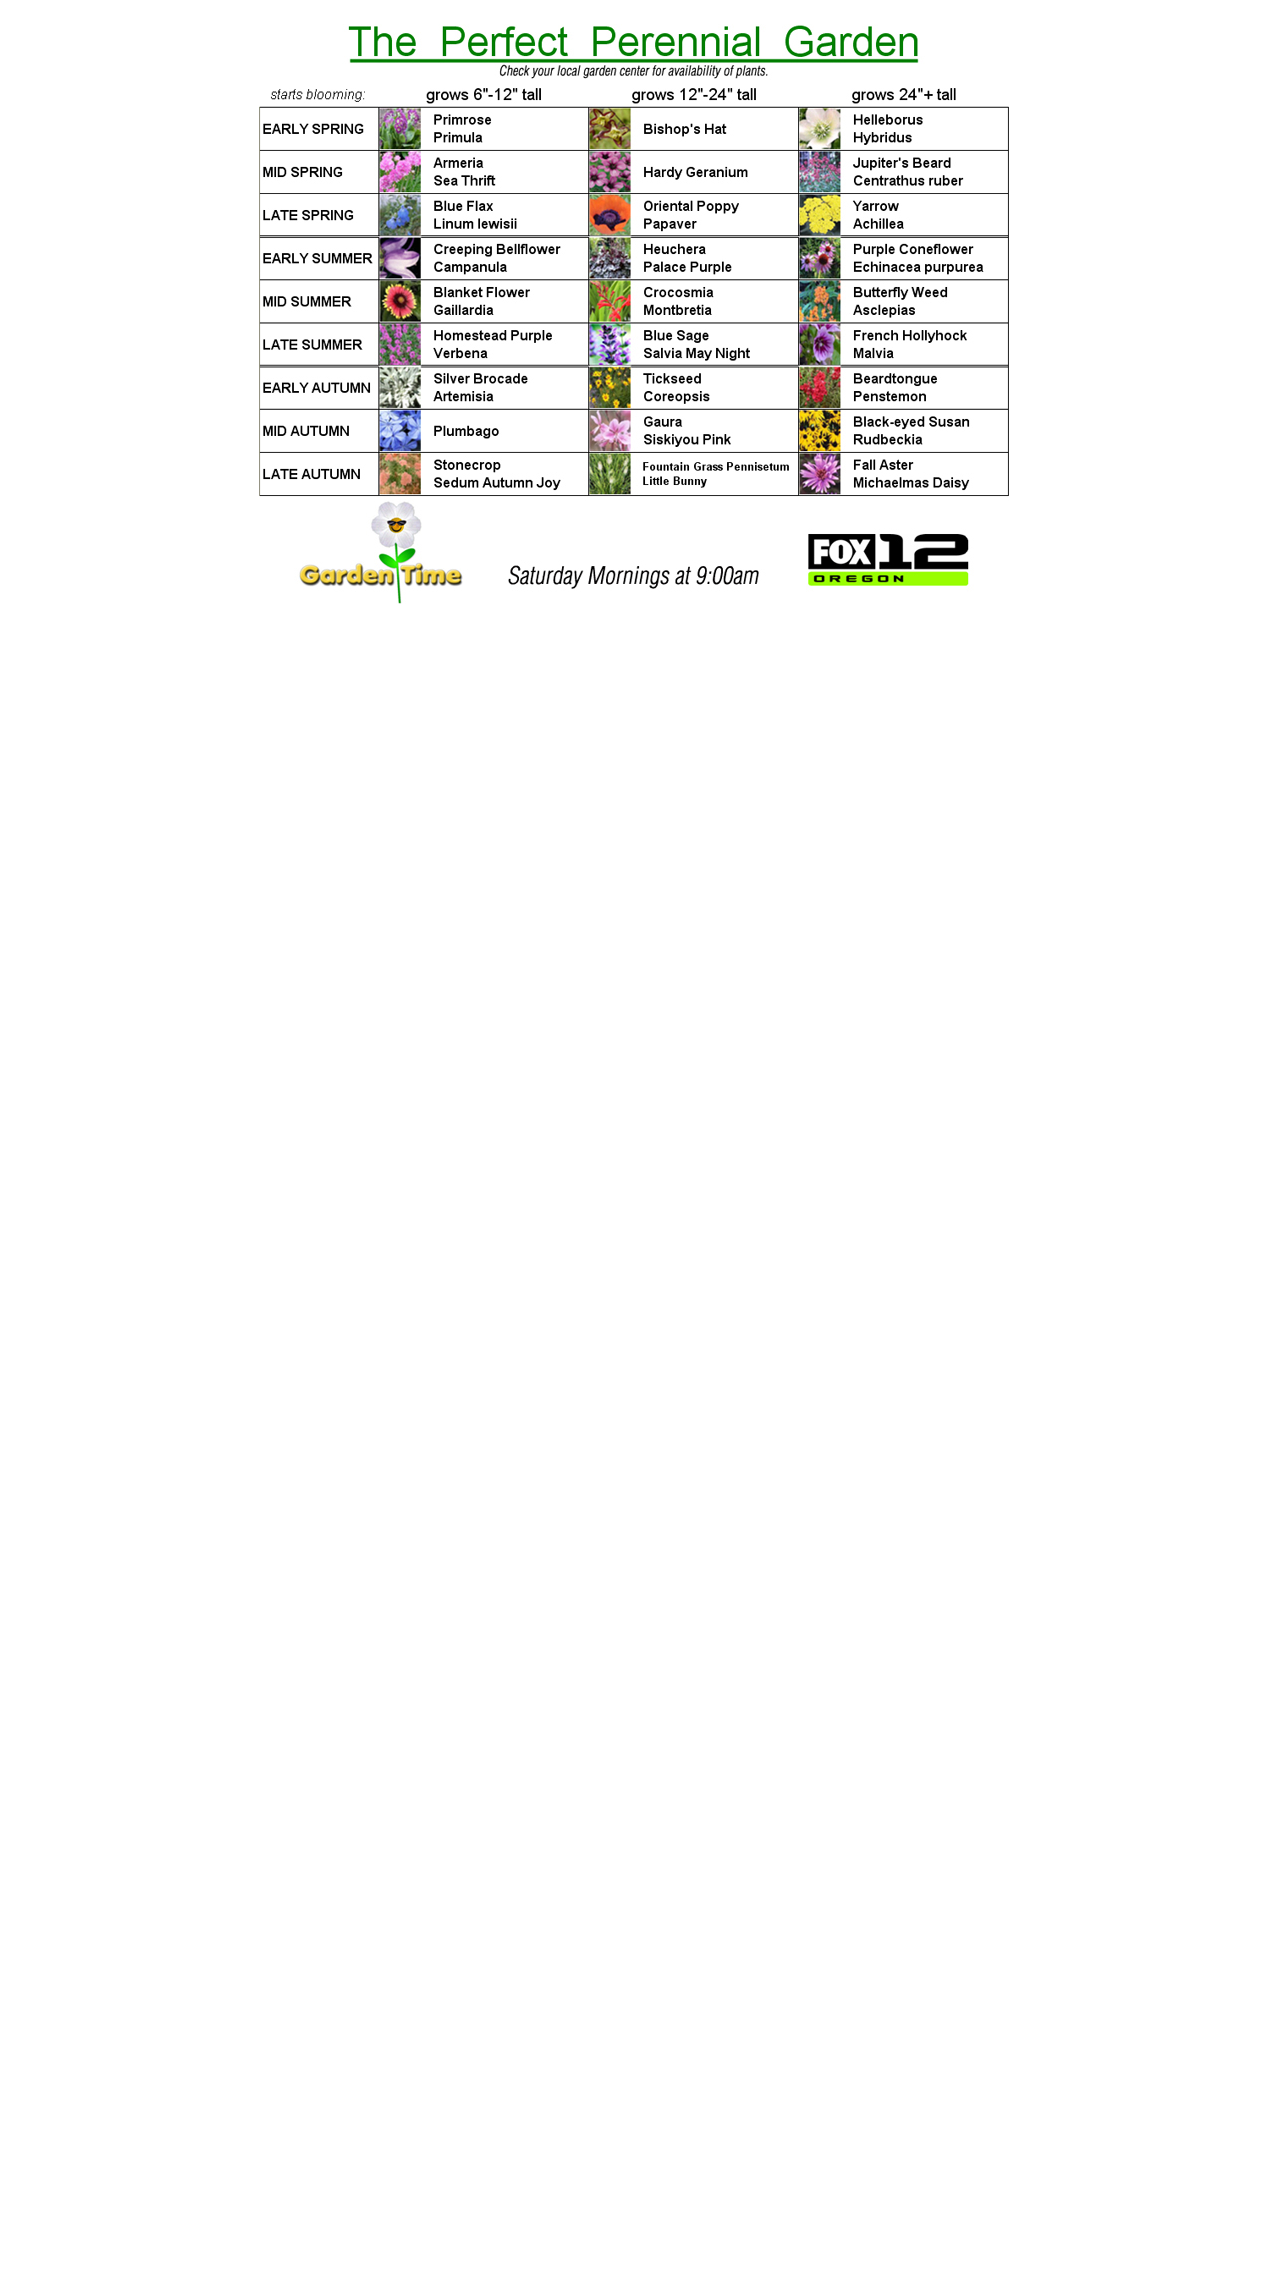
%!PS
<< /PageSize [1268 2293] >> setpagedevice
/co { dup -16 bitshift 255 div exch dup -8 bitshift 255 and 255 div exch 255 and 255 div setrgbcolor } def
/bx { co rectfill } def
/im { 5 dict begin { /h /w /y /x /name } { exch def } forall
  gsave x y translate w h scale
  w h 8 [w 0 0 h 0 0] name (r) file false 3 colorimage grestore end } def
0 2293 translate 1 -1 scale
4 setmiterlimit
0 0 1268 2293 16#FFFFFF bx
(media/1.raw) 259 24 750 580 im
showpage
